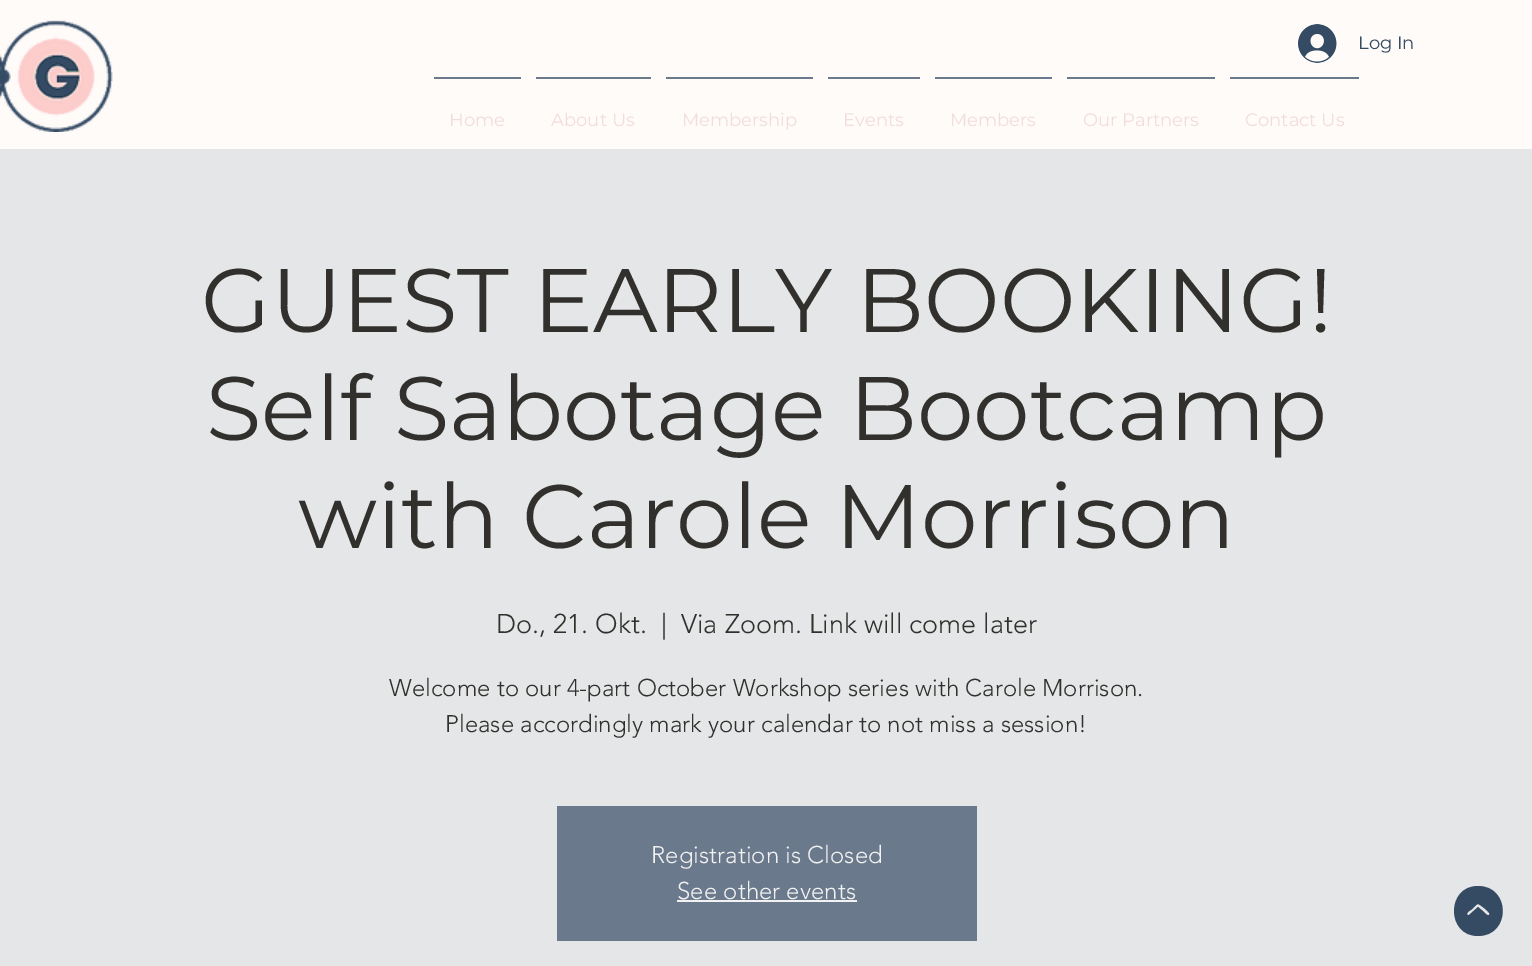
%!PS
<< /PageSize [1532 966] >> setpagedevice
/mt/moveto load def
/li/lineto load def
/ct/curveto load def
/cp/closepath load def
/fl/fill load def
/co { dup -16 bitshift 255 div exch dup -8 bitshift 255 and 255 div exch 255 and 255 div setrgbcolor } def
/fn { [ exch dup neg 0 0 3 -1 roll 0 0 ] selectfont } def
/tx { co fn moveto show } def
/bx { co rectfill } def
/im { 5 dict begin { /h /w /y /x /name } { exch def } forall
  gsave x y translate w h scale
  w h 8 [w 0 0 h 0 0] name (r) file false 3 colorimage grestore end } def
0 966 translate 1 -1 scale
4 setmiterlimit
0 0 1532 966 16#FFFBF9 bx
(media/1.raw) 0 20 113 112 im
(media/2.raw) 1298 24 39 39 im
434 77 87 2 16#6A798B bx
536 77 115 2 16#6A798B bx
666 77 147 2 16#6A798B bx
828 77 92 2 16#6A798B bx
935 77 117 2 16#6A798B bx
1067 77 148 2 16#6A798B bx
1230 77 129 2 16#6A798B bx
0 149 1532 817 16#E4E6E8 bx
557 806 420 135 16#6A798B bx
677 900 180 2 16#F2F2F2 bx
16#354B64 co
1478 886 mt 1446 886 1446 936 1478 936 ct 1511 936 1511 886 1478 886 ct cp 1489 915 mt 1487 916 1485 913 1484 912 ct 1478 907 li 1469 915 li 1468 915 li 1465 914 1470 910 1471 910 ct 1479 903 1476 902 1484 908 ct 1485 909 1491 913 1489 915 ct cp fl
(Log In) 1358 49 /Montserrat-Regular 18 16#354B64 tx
(Home) 449 126 /Montserrat-Regular 18 16#F2DDDC tx
(About Us) 551 126 /Montserrat-Regular 18 16#F2DDDC tx
(Membership) 682 126 /Montserrat-Regular 18 16#F2DDDC tx
(Events) 843 126 /Montserrat-Regular 18 16#F2DDDC tx
(Members) 950 126 /Montserrat-Regular 18 16#F2DDDC tx
(Our Partners) 1083 126 /Montserrat-Regular 18 16#F2DDDC tx
(Contact Us) 1245 126 /Montserrat-Regular 18 16#F2DDDC tx
(GUEST EARLY BOOKING!) 201 332 /Montserrat-Regular 90 16#31302C tx
(Self Sabotage Bootcamp) 206 440 /Montserrat-Regular 90 16#31302C tx
(with Carole Morrison) 298 548 /Montserrat-Regular 90 16#31302C tx
(Do., 21. Okt.) 496 633 /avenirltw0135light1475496-Light 27 16#31302C tx
(|) 661 633 /avenirltw0135light1475496-Light 27 16#31302C tx
(Via Zoom. Link will come later) 681 633 /avenirltw0135light1475496-Light 27 16#31302C tx
(Welcome to our 4-part October Workshop series with Carole Morrison.) 389 696 /avenirltw0135light1475496-Light 24 16#31302C tx
(Please accordingly mark your calendar to not miss a session!) 445 732 /avenirltw0135light1475496-Light 24 16#31302C tx
(Registration is Closed) 651 863 /avenirltw0135light1475496-Light 24 16#F2F2F2 tx
(See other events) 677 899 /avenirltw0135light1475496-Light 24 16#F2F2F2 tx
showpage
